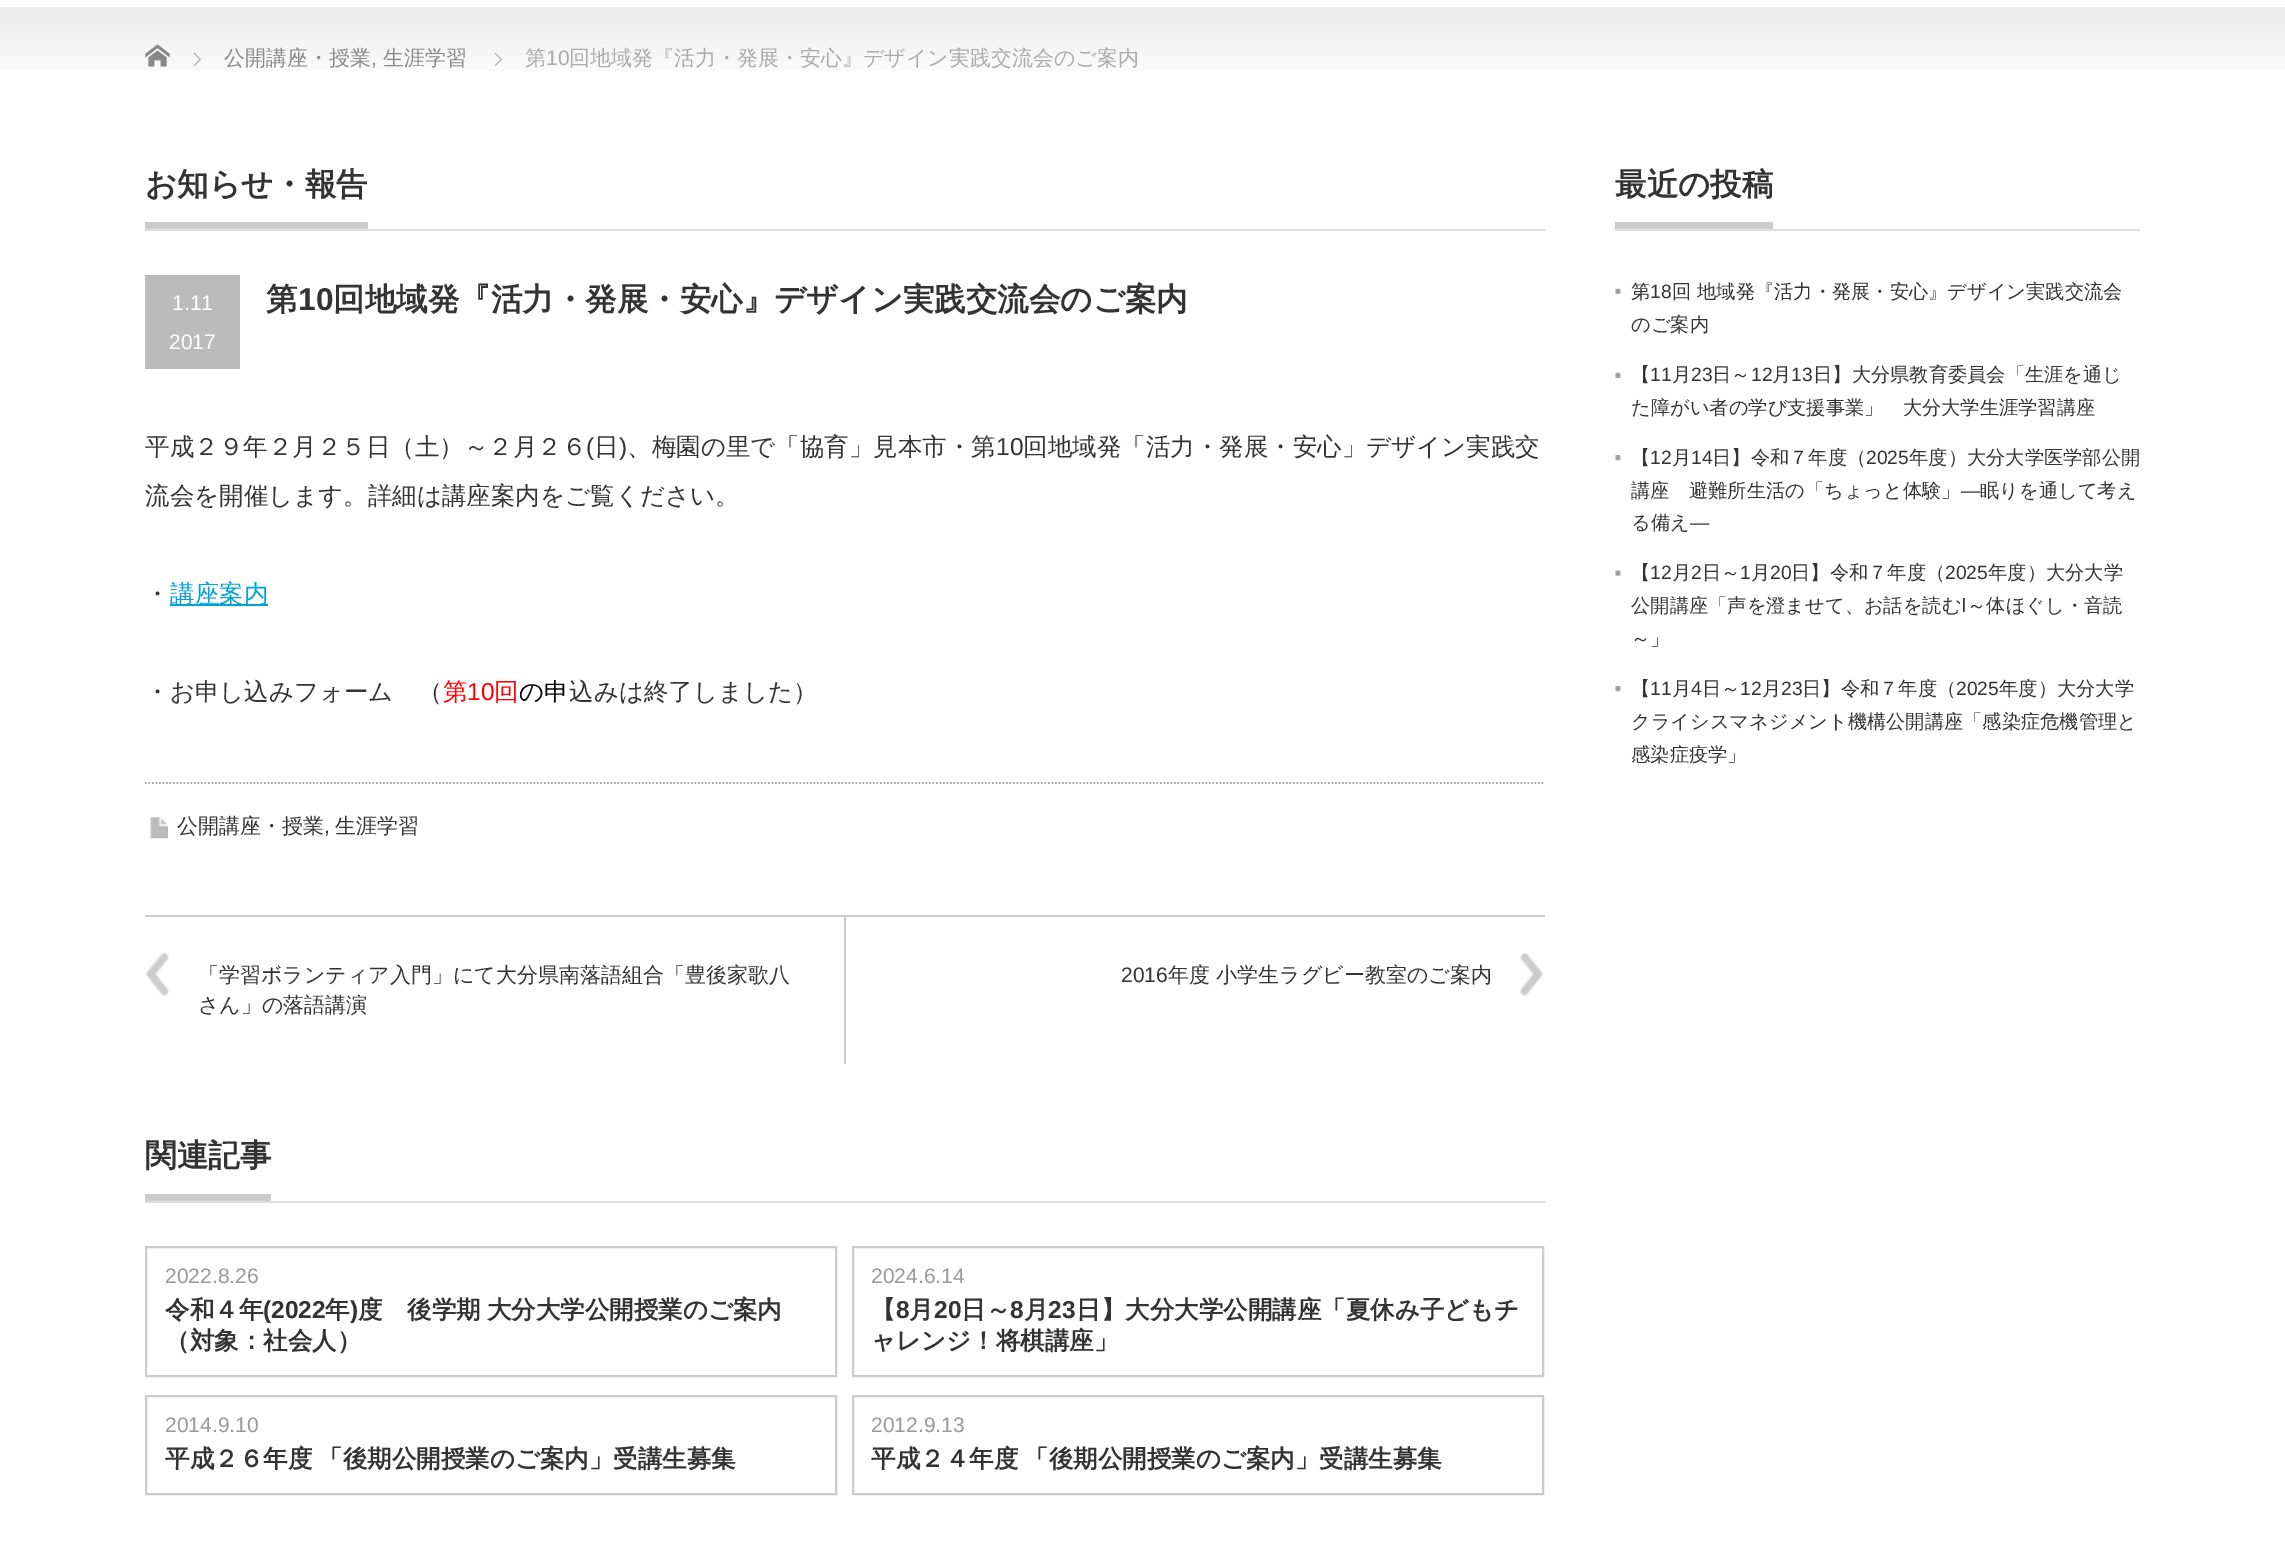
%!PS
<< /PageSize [2285 1558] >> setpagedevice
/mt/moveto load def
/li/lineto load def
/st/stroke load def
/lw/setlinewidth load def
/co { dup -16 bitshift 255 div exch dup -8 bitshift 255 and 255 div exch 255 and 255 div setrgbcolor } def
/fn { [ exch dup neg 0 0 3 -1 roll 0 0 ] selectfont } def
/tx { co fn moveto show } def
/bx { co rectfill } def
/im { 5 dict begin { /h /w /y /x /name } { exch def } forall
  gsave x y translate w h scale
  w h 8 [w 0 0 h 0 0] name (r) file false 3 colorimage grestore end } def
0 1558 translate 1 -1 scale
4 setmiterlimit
0 0 2285 1558 16#FFFFFF bx
(media/1.raw) 0 7 2285 64 im
(media/2.raw) 145 44 25 23 im
(media/3.raw) 193 52 8 15 im
(media/3.raw) 494 52 8 15 im
145 229 1400 2 16#DDDDDD bx
145 222 223 7 16#CCCCCC bx
145 275 95 94 16#BBBBBB bx
170 604 98 2 16#00A2D9 bx
16#AAAAAA co
1.8 lw
[1.75 1.75] 0 setdash
145 783 mt 1545 783 li st
(media/4.raw) 150 817 18 22 im
145 915 1400 2 16#CCCCCC bx
(media/5.raw) 145 952 24 44 im
844 917 2 147 16#CCCCCC bx
(media/6.raw) 1520 952 24 44 im
145 1201 1400 2 16#DDDDDD bx
145 1194 126 7 16#CCCCCC bx
2 lw
[] 0 setdash
146 1247 690 129 rectstroke
853 1247 690 129 rectstroke
146 1396 690 98 rectstroke
853 1396 690 98 rectstroke
1615 229 525 2 16#DDDDDD bx
1615 222 158 7 16#CCCCCC bx
(media/7.raw) 1615 288 6 6 im
(media/7.raw) 1615 372 6 6 im
(media/8.raw) 1615 455 6 6 im
(media/9.raw) 1615 570 6 6 im
(media/8.raw) 1615 686 6 6 im
(公開講座・授業) 224 65 /WenQuanYiZenHei-Medium 21 16#888888 tx
(,) 371 65 /LiberationSans-Regular 21 16#888888 tx
(生涯学習) 383 65 /WenQuanYiZenHei-Medium 21 16#888888 tx
(第) 525 65 /WenQuanYiZenHei-Medium 21 16#AAAAAA tx
(10) 546 65 /LiberationSans-Regular 21 16#AAAAAA tx
(回地域発『活力・発展・安心』デザイン実践交流会のご案内) 569 65 /WenQuanYiZenHei-Medium 21 16#AAAAAA tx
(お知らせ・報告) 145 195 /WenQuanYiZenHei-Bold 31.5 16#333333 tx
(1.11) 172 310 /LiberationSans-Regular 21 16#FFFFFF tx
(2017) 169 349 /LiberationSans-Regular 21 16#FFFFFF tx
(第) 266 310 /WenQuanYiZenHei-Bold 31.5 16#333333 tx
(10) 298 310 /LiberationSans-Bold 31.5 16#333333 tx
(回地域発『活力・発展・安心』デザイン実践交流会のご案内) 333 310 /WenQuanYiZenHei-Bold 31.5 16#333333 tx
(平成２９年２月２５日（土）～２月２６) 145 455 /WenQuanYiZenHei-Medium 24.5 16#333333 tx
(\() 586 455 /LiberationSans-Regular 24.5 16#333333 tx
(日) 594 455 /WenQuanYiZenHei-Medium 24.5 16#333333 tx
(\)) 619 455 /LiberationSans-Regular 24.5 16#333333 tx
(、梅園の里で「協育」見本市・第) 627 455 /WenQuanYiZenHei-Medium 24.5 16#333333 tx
(10) 996 455 /LiberationSans-Regular 24.5 16#333333 tx
(回地域発「活力・発展・安心」デザイン実践交) 1023 455 /WenQuanYiZenHei-Medium 24.5 16#333333 tx
(流会を開催します。詳細は講座案内をご覧ください。) 145 504 /WenQuanYiZenHei-Medium 24.5 16#333333 tx
(・) 145 602 /WenQuanYiZenHei-Medium 24.5 16#333333 tx
(講座案内) 170 602 /WenQuanYiZenHei-Medium 24.5 16#00A2D9 tx
(・お申し込みフォーム　（) 145 700 /WenQuanYiZenHei-Medium 24.5 16#333333 tx
(第) 443 700 /WenQuanYiZenHei-Medium 24.5 16#FF0000 tx
(10) 467 700 /LiberationSans-Regular 24.5 16#FF0000 tx
(回) 494 700 /WenQuanYiZenHei-Medium 24.5 16#FF0000 tx
(の申) 519 700 /WenQuanYiZenHei-Medium 24.5 16#000000 tx
(込みは終了しました）) 569 700 /WenQuanYiZenHei-Medium 24.5 16#333333 tx
(公開講座・授業) 177 833 /WenQuanYiZenHei-Medium 21 16#333333 tx
(,) 324 833 /LiberationSans-Regular 21 16#333333 tx
(生涯学習) 335 833 /WenQuanYiZenHei-Medium 21 16#333333 tx
(「学習ボランティア入門」にて大分県南落語組合「豊後家歌八) 198 982 /WenQuanYiZenHei-Medium 21 16#333333 tx
(さん」の落語講演) 198 1012 /WenQuanYiZenHei-Medium 21 16#333333 tx
(2016) 1121 982 /LiberationSans-Regular 21 16#333333 tx
(年度 小学生ラグビー教室のご案内) 1168 982 /WenQuanYiZenHei-Medium 21 16#333333 tx
(関連記事) 145 1166 /WenQuanYiZenHei-Bold 31.5 16#333333 tx
(2022.8.26) 165 1283 /LiberationSans-Regular 21 16#999999 tx
(令和４年) 165 1318 /WenQuanYiZenHei-Bold 24.5 16#333333 tx
(\(2022) 263 1318 /LiberationSans-Bold 24.5 16#333333 tx
(年) 325 1318 /WenQuanYiZenHei-Bold 24.5 16#333333 tx
(\)) 350 1318 /LiberationSans-Bold 24.5 16#333333 tx
/WenQuanYiZenHei-Bold 24.5 fn
358 1318 mt -1 0 32 (度　後学期 大分大学公開授業のご案内) widthshow
(（対象：社会人）) 165 1349 /WenQuanYiZenHei-Bold 24.5 16#333333 tx
(2024.6.14) 871 1283 /LiberationSans-Regular 21 16#999999 tx
(【) 871 1318 /WenQuanYiZenHei-Bold 24.5 16#333333 tx
(8) 896 1318 /LiberationSans-Bold 24.5 16#333333 tx
(月) 909 1318 /WenQuanYiZenHei-Bold 24.5 16#333333 tx
(20) 934 1318 /LiberationSans-Bold 24.5 16#333333 tx
(日～) 961 1318 /WenQuanYiZenHei-Bold 24.5 16#333333 tx
(8) 1010 1318 /LiberationSans-Bold 24.5 16#333333 tx
(月) 1024 1318 /WenQuanYiZenHei-Bold 24.5 16#333333 tx
(23) 1048 1318 /LiberationSans-Bold 24.5 16#333333 tx
(日】大分大学公開講座「夏休み子どもチ) 1076 1318 /WenQuanYiZenHei-Bold 24.5 16#333333 tx
(ャレンジ！将棋講座」) 871 1349 /WenQuanYiZenHei-Bold 24.5 16#333333 tx
(2014.9.10) 165 1432 /LiberationSans-Regular 21 16#999999 tx
/WenQuanYiZenHei-Bold 24.5 fn
16#333333 co
165 1467 mt -1 0 32 (平成２６年度 「後期公開授業のご案内」受講生募集) widthshow
(2012.9.13) 871 1432 /LiberationSans-Regular 21 16#999999 tx
/WenQuanYiZenHei-Bold 24.5 fn
16#333333 co
871 1467 mt -1 0 32 (平成２４年度 「後期公開授業のご案内」受講生募集) widthshow
(最近の投稿) 1615 195 /WenQuanYiZenHei-Bold 31.5 16#333333 tx
(第) 1631 298 /WenQuanYiZenHei-Medium 19.25 16#333333 tx
(18) 1650 298 /LiberationSans-Regular 19.25 16#333333 tx
(回 地域発『活力・発展・安心』デザイン実践交流会) 1672 298 /WenQuanYiZenHei-Medium 19.25 16#333333 tx
(のご案内) 1631 331 /WenQuanYiZenHei-Medium 19.25 16#333333 tx
(【) 1631 381 /WenQuanYiZenHei-Medium 19.25 16#333333 tx
(11) 1650 381 /LiberationSans-Regular 19.25 16#333333 tx
(月) 1672 381 /WenQuanYiZenHei-Medium 19.25 16#333333 tx
(23) 1691 381 /LiberationSans-Regular 19.25 16#333333 tx
(日～) 1712 381 /WenQuanYiZenHei-Medium 19.25 16#333333 tx
(12) 1751 381 /LiberationSans-Regular 19.25 16#333333 tx
(月) 1772 381 /WenQuanYiZenHei-Medium 19.25 16#333333 tx
(13) 1791 381 /LiberationSans-Regular 19.25 16#333333 tx
(日】大分県教育委員会「生涯を通じ) 1813 381 /WenQuanYiZenHei-Medium 19.25 16#333333 tx
(た障がい者の学び支援事業」　大分大学生涯学習講座) 1631 414 /WenQuanYiZenHei-Medium 19.25 16#333333 tx
(【) 1631 464 /WenQuanYiZenHei-Medium 19.25 16#333333 tx
(12) 1650 464 /LiberationSans-Regular 19.25 16#333333 tx
(月) 1672 464 /WenQuanYiZenHei-Medium 19.25 16#333333 tx
(14) 1691 464 /LiberationSans-Regular 19.25 16#333333 tx
(日】令和７年度（) 1712 464 /WenQuanYiZenHei-Medium 19.25 16#333333 tx
(2025) 1866 464 /LiberationSans-Regular 19.25 16#333333 tx
(年度）大分大学医学部公開) 1909 464 /WenQuanYiZenHei-Medium 19.25 16#333333 tx
(講座　避難所生活の「ちょっと体験」) 1631 497 /WenQuanYiZenHei-Medium 19.25 16#333333 tx
(―) 1961 497 /LiberationSans-Regular 19.25 16#333333 tx
(眠りを通して考え) 1980 497 /WenQuanYiZenHei-Medium 19.25 16#333333 tx
(る備え) 1631 529 /WenQuanYiZenHei-Medium 19.25 16#333333 tx
(―) 1690 529 /LiberationSans-Regular 19.25 16#333333 tx
(【) 1631 579 /WenQuanYiZenHei-Medium 19.25 16#333333 tx
(12) 1650 579 /LiberationSans-Regular 19.25 16#333333 tx
(月) 1672 579 /WenQuanYiZenHei-Medium 19.25 16#333333 tx
(2) 1691 579 /LiberationSans-Regular 19.25 16#333333 tx
(日～) 1702 579 /WenQuanYiZenHei-Medium 19.25 16#333333 tx
(1) 1740 579 /LiberationSans-Regular 19.25 16#333333 tx
(月) 1751 579 /WenQuanYiZenHei-Medium 19.25 16#333333 tx
(20) 1770 579 /LiberationSans-Regular 19.25 16#333333 tx
(日】令和７年度（) 1791 579 /WenQuanYiZenHei-Medium 19.25 16#333333 tx
(2025) 1945 579 /LiberationSans-Regular 19.25 16#333333 tx
(年度）大分大学) 1988 579 /WenQuanYiZenHei-Medium 19.25 16#333333 tx
(公開講座「声を澄ませて、お話を読む ～体ほぐし・音読) 1631 612 /WenQuanYiZenHei-Medium 19.25 16#333333 tx
(Ⅰ) 1961 612 /DejaVuSans-Regular 19.25 16#333333 tx
(～」) 1631 645 /WenQuanYiZenHei-Medium 19.25 16#333333 tx
(【) 1631 695 /WenQuanYiZenHei-Medium 19.25 16#333333 tx
(11) 1650 695 /LiberationSans-Regular 19.25 16#333333 tx
(月) 1672 695 /WenQuanYiZenHei-Medium 19.25 16#333333 tx
(4) 1691 695 /LiberationSans-Regular 19.25 16#333333 tx
(日～) 1702 695 /WenQuanYiZenHei-Medium 19.25 16#333333 tx
(12) 1740 695 /LiberationSans-Regular 19.25 16#333333 tx
(月) 1762 695 /WenQuanYiZenHei-Medium 19.25 16#333333 tx
(23) 1781 695 /LiberationSans-Regular 19.25 16#333333 tx
(日】令和７年度（) 1802 695 /WenQuanYiZenHei-Medium 19.25 16#333333 tx
(2025) 1956 695 /LiberationSans-Regular 19.25 16#333333 tx
(年度）大分大学) 1999 695 /WenQuanYiZenHei-Medium 19.25 16#333333 tx
(クライシスマネジメント機構公開講座「感染症危機管理と) 1631 728 /WenQuanYiZenHei-Medium 19.25 16#333333 tx
(感染症疫学」) 1631 761 /WenQuanYiZenHei-Medium 19.25 16#333333 tx
showpage
